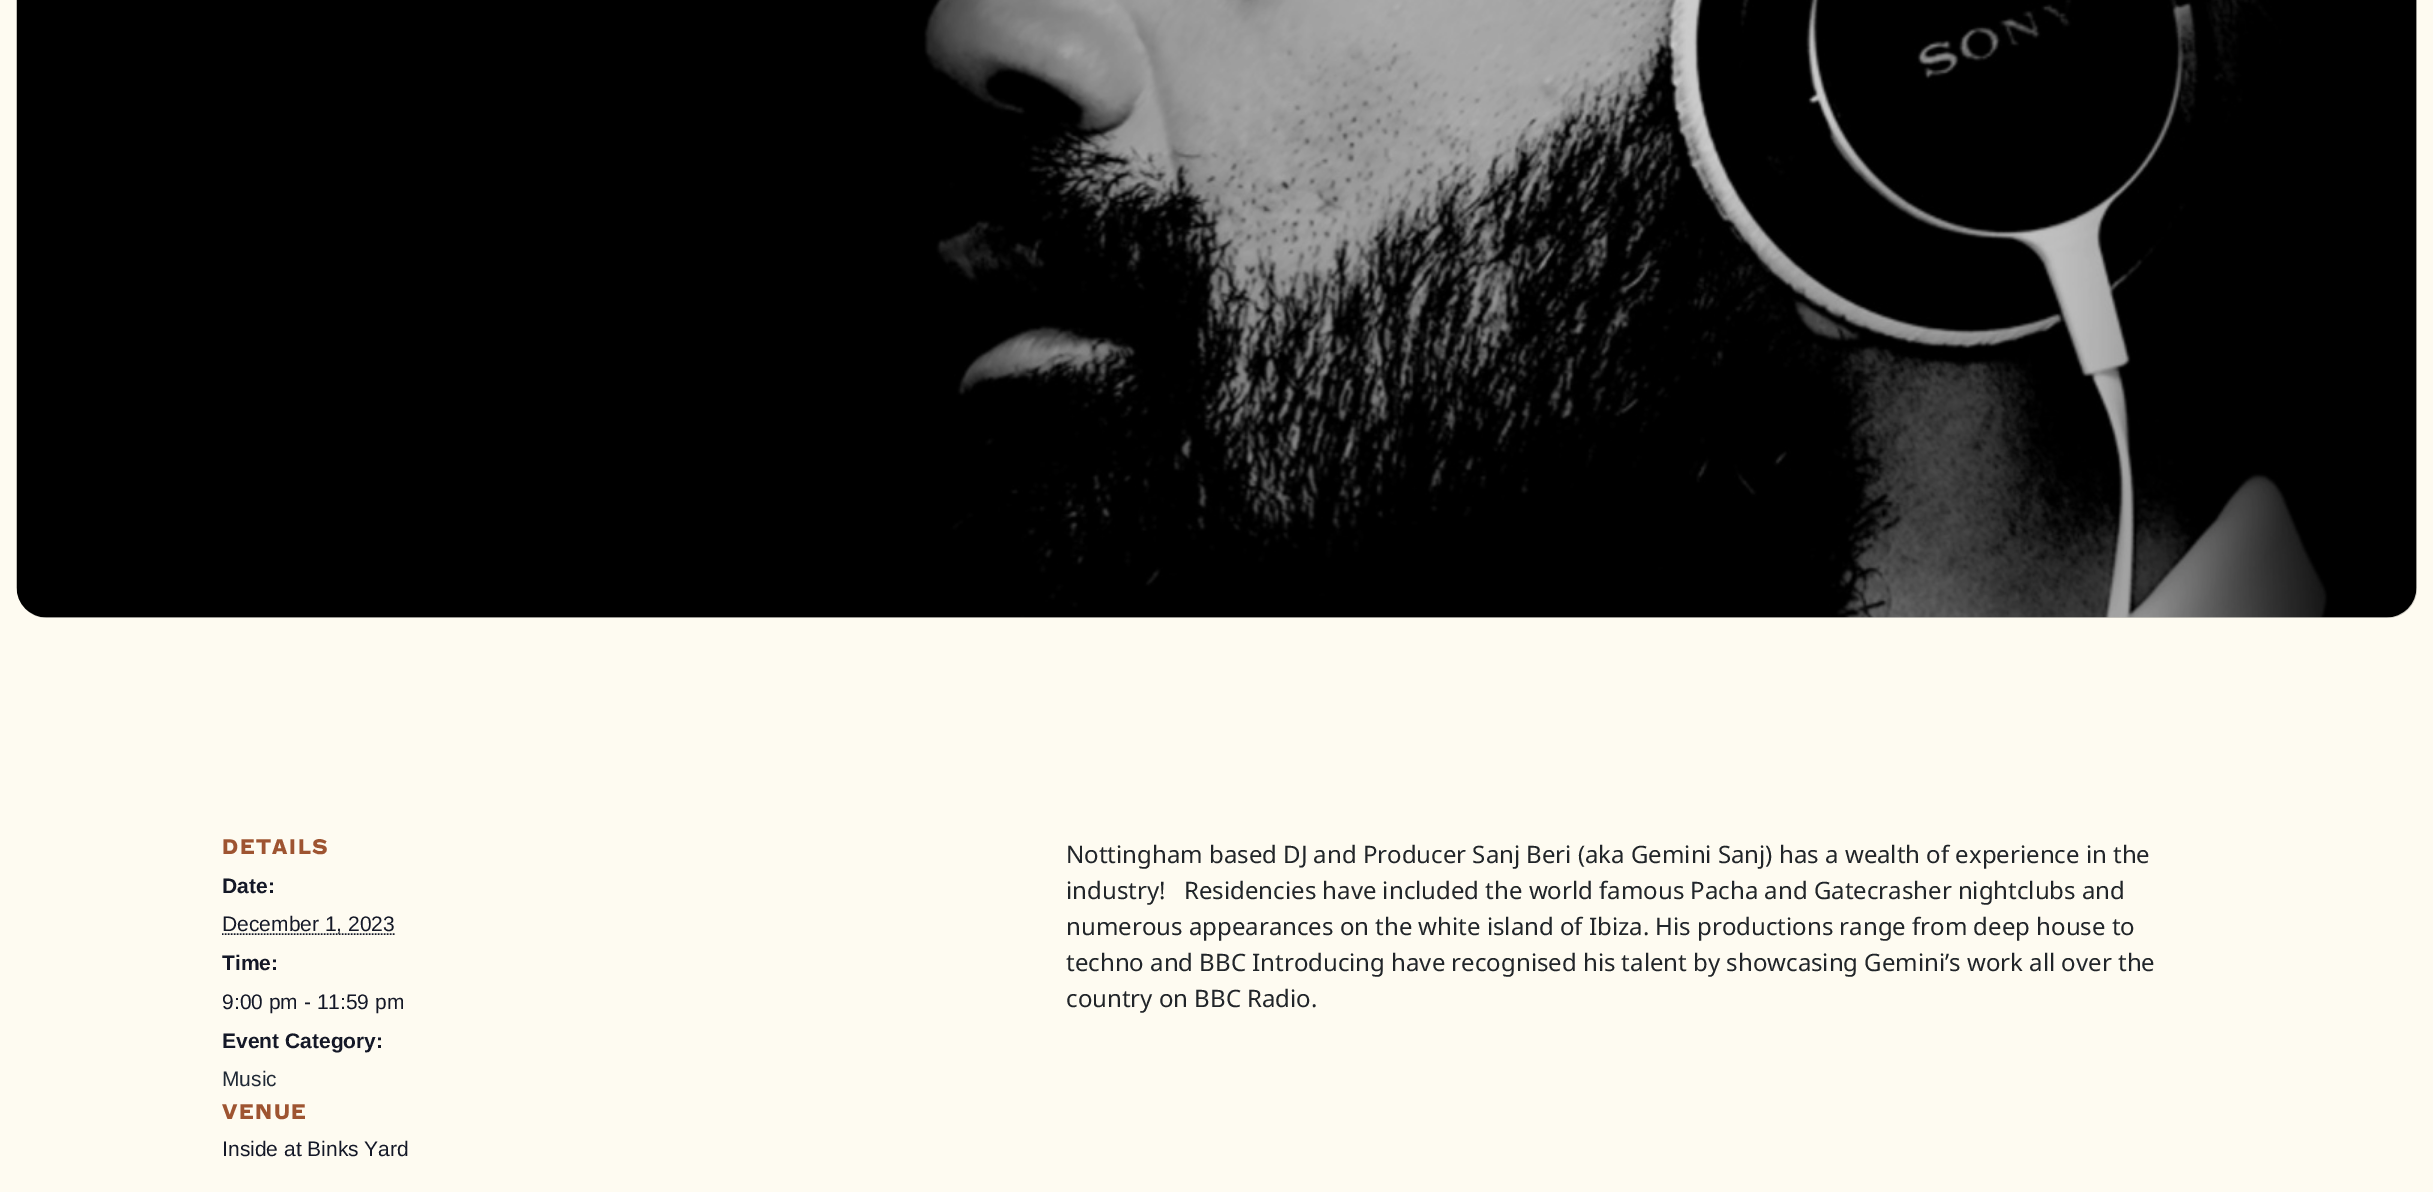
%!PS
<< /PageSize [2433 1192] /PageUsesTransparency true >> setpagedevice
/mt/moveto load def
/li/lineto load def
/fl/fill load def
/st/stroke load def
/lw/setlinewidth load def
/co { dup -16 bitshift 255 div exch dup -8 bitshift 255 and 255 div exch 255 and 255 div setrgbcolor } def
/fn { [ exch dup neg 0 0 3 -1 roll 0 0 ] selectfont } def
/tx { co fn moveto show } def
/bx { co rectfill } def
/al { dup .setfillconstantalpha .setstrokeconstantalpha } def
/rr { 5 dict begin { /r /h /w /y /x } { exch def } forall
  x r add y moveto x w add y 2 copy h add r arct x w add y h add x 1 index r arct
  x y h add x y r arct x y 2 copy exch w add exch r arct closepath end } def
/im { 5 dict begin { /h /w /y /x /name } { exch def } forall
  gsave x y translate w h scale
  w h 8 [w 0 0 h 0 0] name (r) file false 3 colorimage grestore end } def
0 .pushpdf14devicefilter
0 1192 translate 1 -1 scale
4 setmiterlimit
0 0 2433 1192 16#FEFBF1 bx
(media/1.raw) 16 0 2401 618 im
0.2 al
16#000000 co
17 -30 2400 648 30 rr fl
1 al
16#141827 co
1.5 lw
[1.5 1.5] 0 setdash
222 934 mt 395 934 li st
/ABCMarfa-Black 21 fn
16#9E5431 co
222 854 mt 1.5 0 (DETAILS) ashow
(Date:) 222 893 /LiberationSans-Bold 21 16#141827 tx
(December 1, 2023) 222 931 /LiberationSans-Regular 21 16#141827 tx
(Time:) 222 970 /LiberationSans-Bold 21 16#141827 tx
(9:00 pm - 11:59 pm) 222 1009 /LiberationSans-Regular 21 16#141827 tx
(Event Category:) 222 1048 /LiberationSans-Bold 21 16#141827 tx
(Music) 222 1086 /LiberationSans-Regular 21 16#212A36 tx
/ABCMarfa-Black 21 fn
16#9E5431 co
222 1119 mt 1.5 0 (VENUE) ashow
(Inside at Binks Yard) 222 1156 /LiberationSans-Regular 21 16#141827 tx
(Nottingham based DJ and Producer Sanj Beri \(aka Gemini Sanj\) has a wealth of experience in the) 1066 863 /NotoSans-Regular 24 16#212529 tx
(industry!) 1066 899 /NotoSans-Regular 24 16#212529 tx
(Residencies have included the world famous Pacha and Gatecrasher nightclubs and) 1184 899 /NotoSans-Regular 24 16#212529 tx
(numerous appearances on the white island of Ibiza. His productions range from deep house to) 1066 935 /NotoSans-Regular 24 16#212529 tx
(techno and BBC Introducing have recognised his talent by showcasing Gemini’s work all over the) 1066 971 /NotoSans-Regular 24 16#212529 tx
(country on BBC Radio.) 1066 1007 /NotoSans-Regular 24 16#212529 tx
.poppdf14devicefilter showpage
